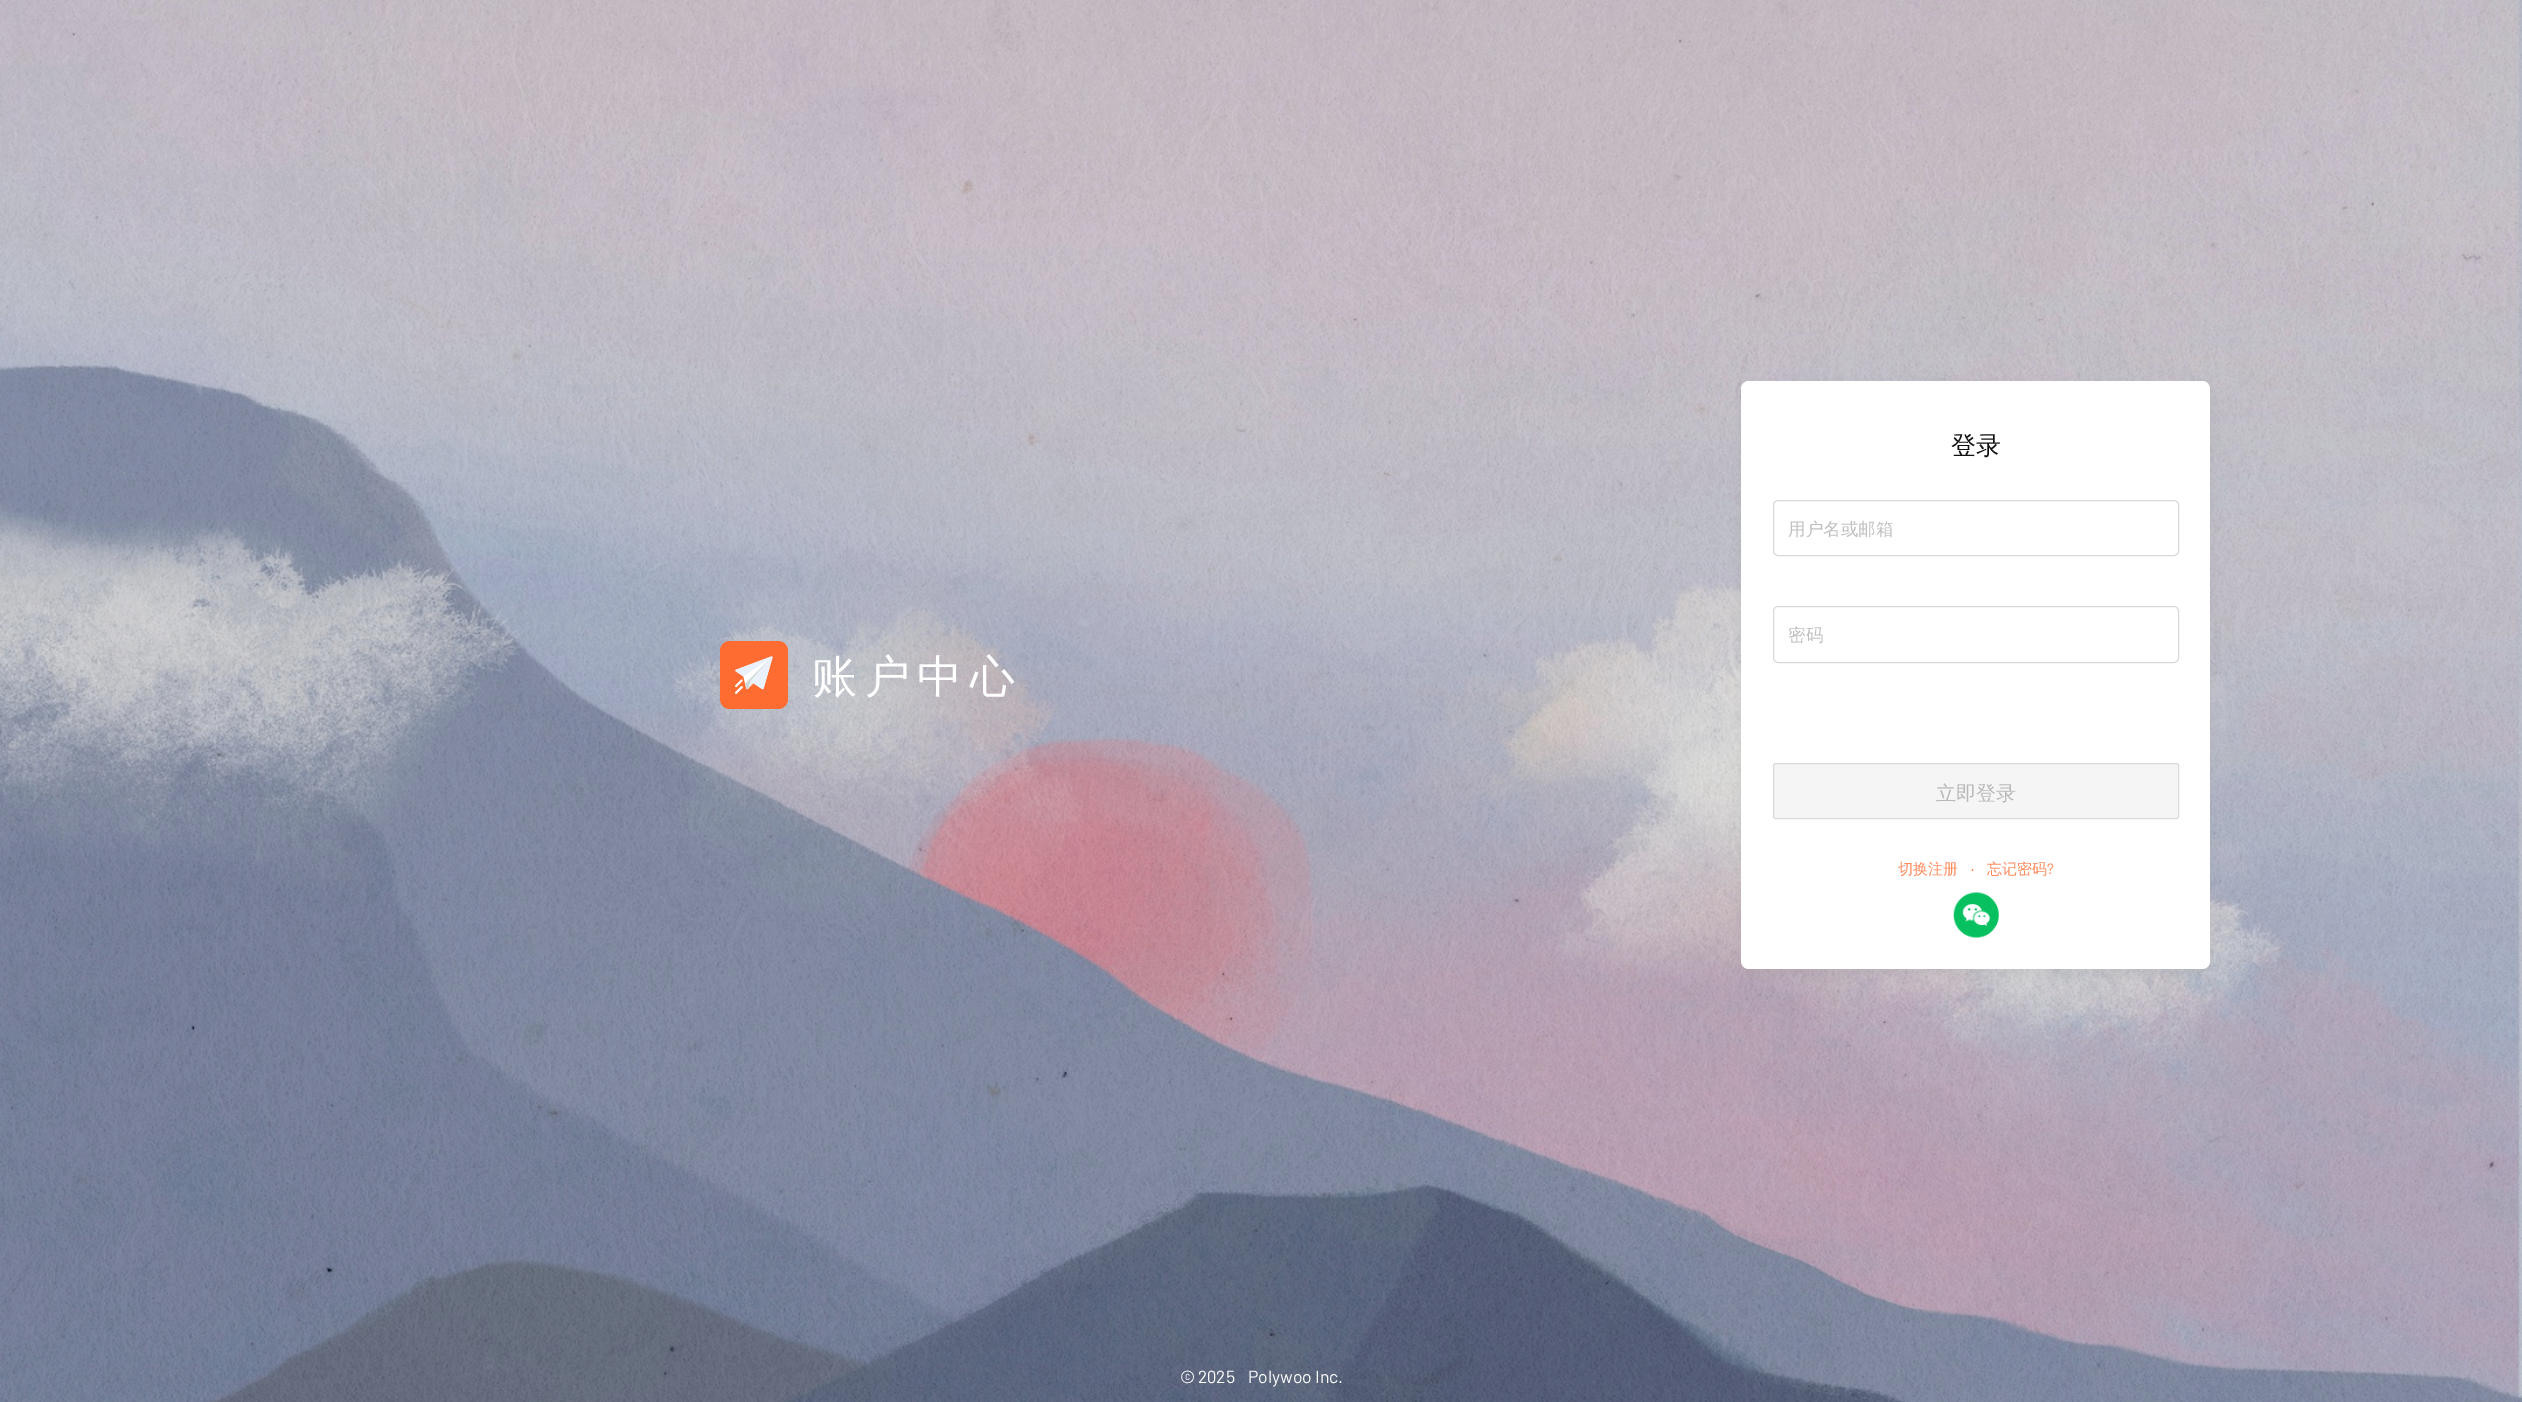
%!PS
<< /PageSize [2522 1402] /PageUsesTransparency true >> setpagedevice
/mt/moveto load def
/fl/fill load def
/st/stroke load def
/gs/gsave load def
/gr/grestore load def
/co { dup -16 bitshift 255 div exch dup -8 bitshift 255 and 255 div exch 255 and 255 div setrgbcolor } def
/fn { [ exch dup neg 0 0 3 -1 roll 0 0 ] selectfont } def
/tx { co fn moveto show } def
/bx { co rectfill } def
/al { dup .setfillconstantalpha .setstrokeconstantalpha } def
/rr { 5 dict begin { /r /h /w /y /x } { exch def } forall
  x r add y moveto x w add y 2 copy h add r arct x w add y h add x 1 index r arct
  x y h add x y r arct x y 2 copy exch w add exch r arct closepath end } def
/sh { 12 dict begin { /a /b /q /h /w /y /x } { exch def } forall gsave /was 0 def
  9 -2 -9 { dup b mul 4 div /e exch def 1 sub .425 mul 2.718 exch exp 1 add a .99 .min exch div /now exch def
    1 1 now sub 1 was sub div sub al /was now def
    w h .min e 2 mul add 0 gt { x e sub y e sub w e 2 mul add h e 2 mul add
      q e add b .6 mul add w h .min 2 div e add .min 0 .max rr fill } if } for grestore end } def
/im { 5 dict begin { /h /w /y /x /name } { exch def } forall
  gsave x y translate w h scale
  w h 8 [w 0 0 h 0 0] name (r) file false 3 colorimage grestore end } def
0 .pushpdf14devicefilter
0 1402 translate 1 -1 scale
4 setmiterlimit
0 0 2522 1402 16#FFFFFF bx
(media/1.raw) 0 0 2522 1402 im
16#FF6C32 co
720 641 68 68 10 rr fl
(media/2.raw) 735 656 38 38 im
16#000000 co
1741 386 469 588 8 6 .05 sh
16#FFFFFF co
1741 381 469 588 8 rr fl
16#D9D9D9 co
1773.5 500.5 405 55 4.5 rr st
1773.5 606.5 405 56 4.5 rr st
16#F5F5F5 co
1773.5 763.5 405 55 2 rr gs fl gr
16#D9D9D9 co
st
(media/3.raw) 1953 892 46 46 im
/WenQuanYiZenHei-Medium 45 fn
16#FFFFFF co
812 692 mt 7.5 0 (账户中心) ashow
(登录) 1951 454 /WenQuanYiZenHei-Medium 25 16#111111 tx
(用户名或邮箱) 1788 535 /WenQuanYiZenHei-Medium 17.5 16#BFBFBF tx
(密码) 1788 641 /WenQuanYiZenHei-Medium 17.5 16#BFBFBF tx
(立即登录) 1936 800 /WenQuanYiZenHei-Medium 20 16#B8B8B8 tx
(切换注册) 1898 874 /WenQuanYiZenHei-Medium 15 16#FF895B tx
(·) 1971 874 /Barlow-Regular 15 16#FF6C32 tx
(忘记密码) 1987 874 /WenQuanYiZenHei-Medium 15 16#FF895B tx
(?) 2047 874 /Barlow-Regular 15 16#FF895B tx
(©) 1180 1383 /Barlow-Regular 17.5 16#FFFFFF tx
(2025) 1198 1383 /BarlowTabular-Regular 17.5 16#FFFFFF tx
(Polywoo Inc.) 1248 1383 /Barlow-Regular 17.5 16#FFFFFF tx
.poppdf14devicefilter showpage
